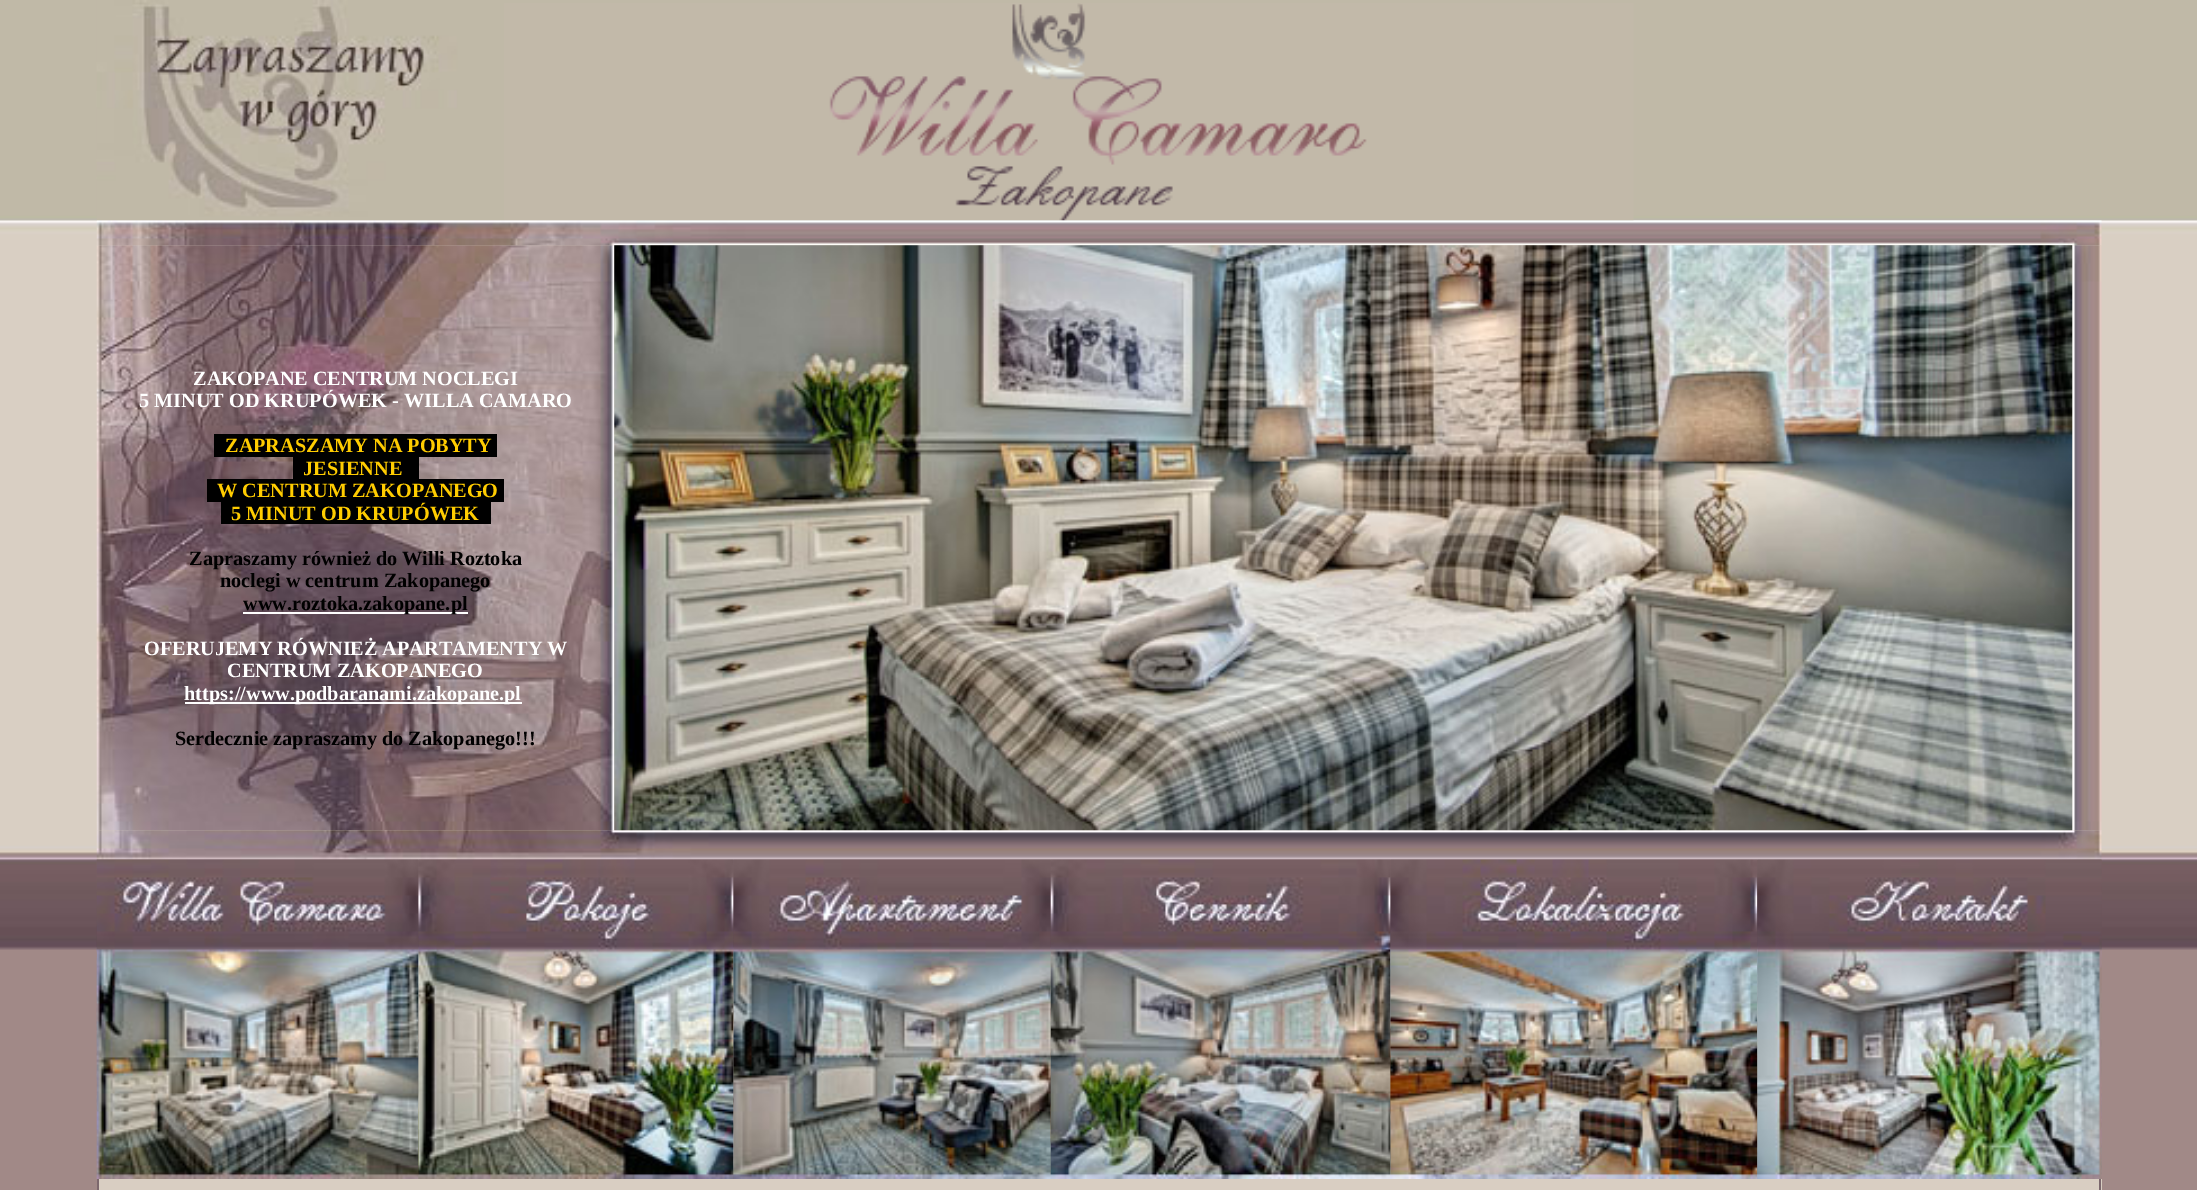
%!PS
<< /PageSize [2197 1190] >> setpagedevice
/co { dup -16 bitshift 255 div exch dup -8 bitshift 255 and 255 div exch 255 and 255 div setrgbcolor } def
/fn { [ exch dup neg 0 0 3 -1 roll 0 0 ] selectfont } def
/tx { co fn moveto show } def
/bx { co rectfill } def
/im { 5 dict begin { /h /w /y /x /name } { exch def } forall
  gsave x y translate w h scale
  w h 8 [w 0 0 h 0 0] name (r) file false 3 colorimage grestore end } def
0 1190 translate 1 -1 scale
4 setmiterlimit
0 0 2197 1190 16#A18987 bx
(media/1.raw) 0 0 2197 950 im
(media/2.raw) 96 0 408 221 im
(media/3.raw) 504 3 1130 218 im
(media/5.raw) 96 245 519 586 im
(media/4.raw) 96 220 2006 26 im
214 434 283 23 16#000000 bx
293 457 126 22 16#000000 bx
207 479 297 23 16#000000 bx
221 502 270 22 16#000000 bx
243 612 225 2 16#FFFFFF bx
185 702 337 2 16#FFFFFF bx
(media/7.raw) 2072 245 30 586 im
(media/9.raw) 96 859 2006 320 im
(media/8.raw) 96 830 2006 30 im
(media/6.raw) 614 245 1459 586 im
(media/10.raw) 96 859 323 320 im
(media/11.raw) 418 859 316 320 im
(media/12.raw) 733 859 318 320 im
(media/13.raw) 1050 859 341 320 im
(media/14.raw) 1390 859 368 320 im
(media/15.raw) 1757 859 345 320 im
99 1179 2003 11 16#D9CEC2 bx
2099 1179 2 11 16#7C686D bx
97 1179 2 11 16#7C686D bx
(ZAKOPANE CENTRUM NOCLEGI) 193 385 /LiberationSerif-Bold 20.25 16#FFFFFF tx
(5 MINUT OD KRUPÓWEK - WILLA CAMARO) 139 407 /LiberationSerif-Bold 20.25 16#FFFFFF tx
(ZAPRASZAMY NA POBYTY) 225 452 /LiberationSerif-Bold 20.25 16#FFCC00 tx
(JESIENNE) 303 475 /LiberationSerif-Bold 20.25 16#FFCC00 tx
(W CENTRUM ZAKOPANEGO) 217 497 /LiberationSerif-Bold 20.25 16#FFCC00 tx
(5 MINUT OD KRUPÓWEK) 231 520 /LiberationSerif-Bold 20.25 16#FFCC00 tx
(Zapraszamy również do Willi Roztoka) 189 565 /LiberationSerif-Bold 20.25 16#000000 tx
(noclegi w centrum Zakopanego) 220 587 /LiberationSerif-Bold 20.25 16#000000 tx
(www.roztoka.zakopane.pl) 243 610 /LiberationSerif-Bold 20.25 16#000000 tx
(OFERUJEMY RÓWNIEŻ APARTAMENTY W) 144 655 /LiberationSerif-Bold 20.25 16#FFFFFF tx
(CENTRUM ZAKOPANEGO) 227 677 /LiberationSerif-Bold 20.25 16#FFFFFF tx
(https://www.podbaranami.zakopane.pl) 184 700 /LiberationSerif-Bold 20.25 16#FFFFFF tx
(Serdecznie zapraszamy do Zakopanego!!!) 175 745 /LiberationSerif-Bold 20.25 16#000000 tx
showpage
